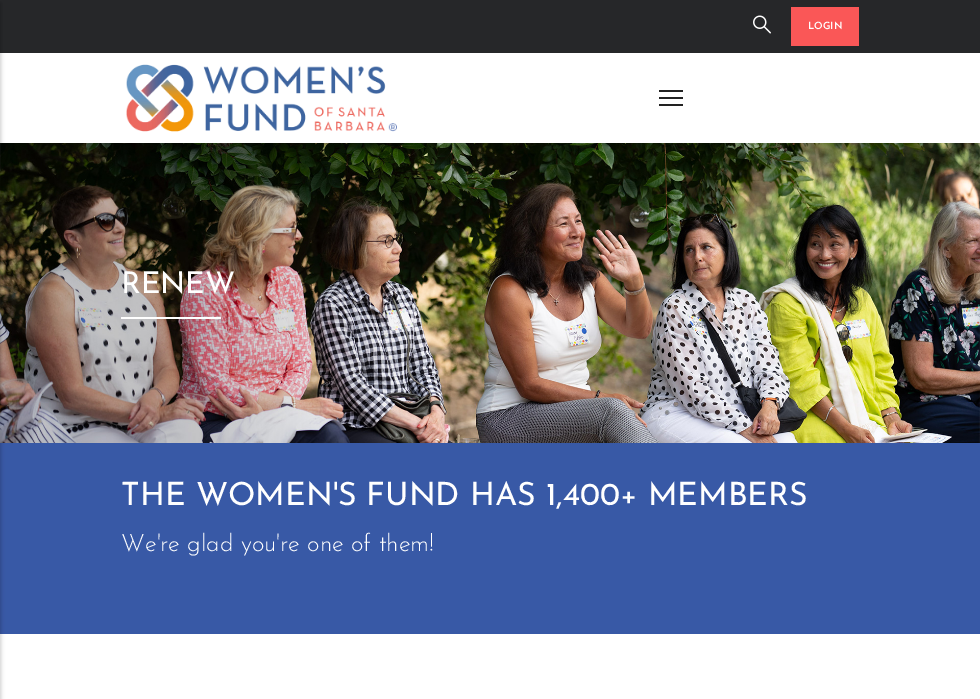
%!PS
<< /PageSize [980 699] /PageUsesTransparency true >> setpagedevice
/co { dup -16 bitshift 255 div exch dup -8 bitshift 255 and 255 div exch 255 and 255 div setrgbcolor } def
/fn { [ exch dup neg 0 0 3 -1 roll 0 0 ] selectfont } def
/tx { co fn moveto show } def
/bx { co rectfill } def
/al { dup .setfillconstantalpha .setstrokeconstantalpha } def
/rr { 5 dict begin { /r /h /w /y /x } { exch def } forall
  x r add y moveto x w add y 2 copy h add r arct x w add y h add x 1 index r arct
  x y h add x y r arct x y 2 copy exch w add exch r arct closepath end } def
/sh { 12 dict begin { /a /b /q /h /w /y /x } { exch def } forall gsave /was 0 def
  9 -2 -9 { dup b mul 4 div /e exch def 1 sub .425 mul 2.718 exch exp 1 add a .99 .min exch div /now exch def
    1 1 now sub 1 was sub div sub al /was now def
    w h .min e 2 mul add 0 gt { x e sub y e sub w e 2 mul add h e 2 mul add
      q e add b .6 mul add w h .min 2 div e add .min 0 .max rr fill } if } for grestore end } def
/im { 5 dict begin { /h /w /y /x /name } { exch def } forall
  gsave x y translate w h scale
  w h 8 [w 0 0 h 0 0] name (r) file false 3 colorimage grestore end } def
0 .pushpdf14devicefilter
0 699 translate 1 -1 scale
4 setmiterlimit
0 0 980 699 16#FFFFFF bx
0 0 980 53 16#262729 bx
(media/3.raw) 0 143 980 300 im
0 443 980 191 16#3859A6 bx
16#000000 co
-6 3 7 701 0 2 .2 sh
659 90 24 2 16#222222 bx
659 97 24 2 16#222222 bx
659 104 24 2 16#222222 bx
(media/1.raw) 126 64 271 68 im
(media/2.raw) 753 15 18 19 im
791 7 68 39 16#FA5757 bx
121 317 100 2 16#FFFFFF bx
(LOGIN) 808 29 /JosefinSans-SemiBold 10 16#FFFFFF tx
(RENEW) 121 293 /JosefinSans-Regular 30 16#FFFFFF tx
(THE WOMEN'S FUND HAS 1,400+ MEMBERS) 121 505 /JosefinSans-Regular 32 16#FFFFFF tx
(We're glad you're one of them!) 121 551 /JosefinSans-Light 24 16#FFFFFF tx
.poppdf14devicefilter showpage
